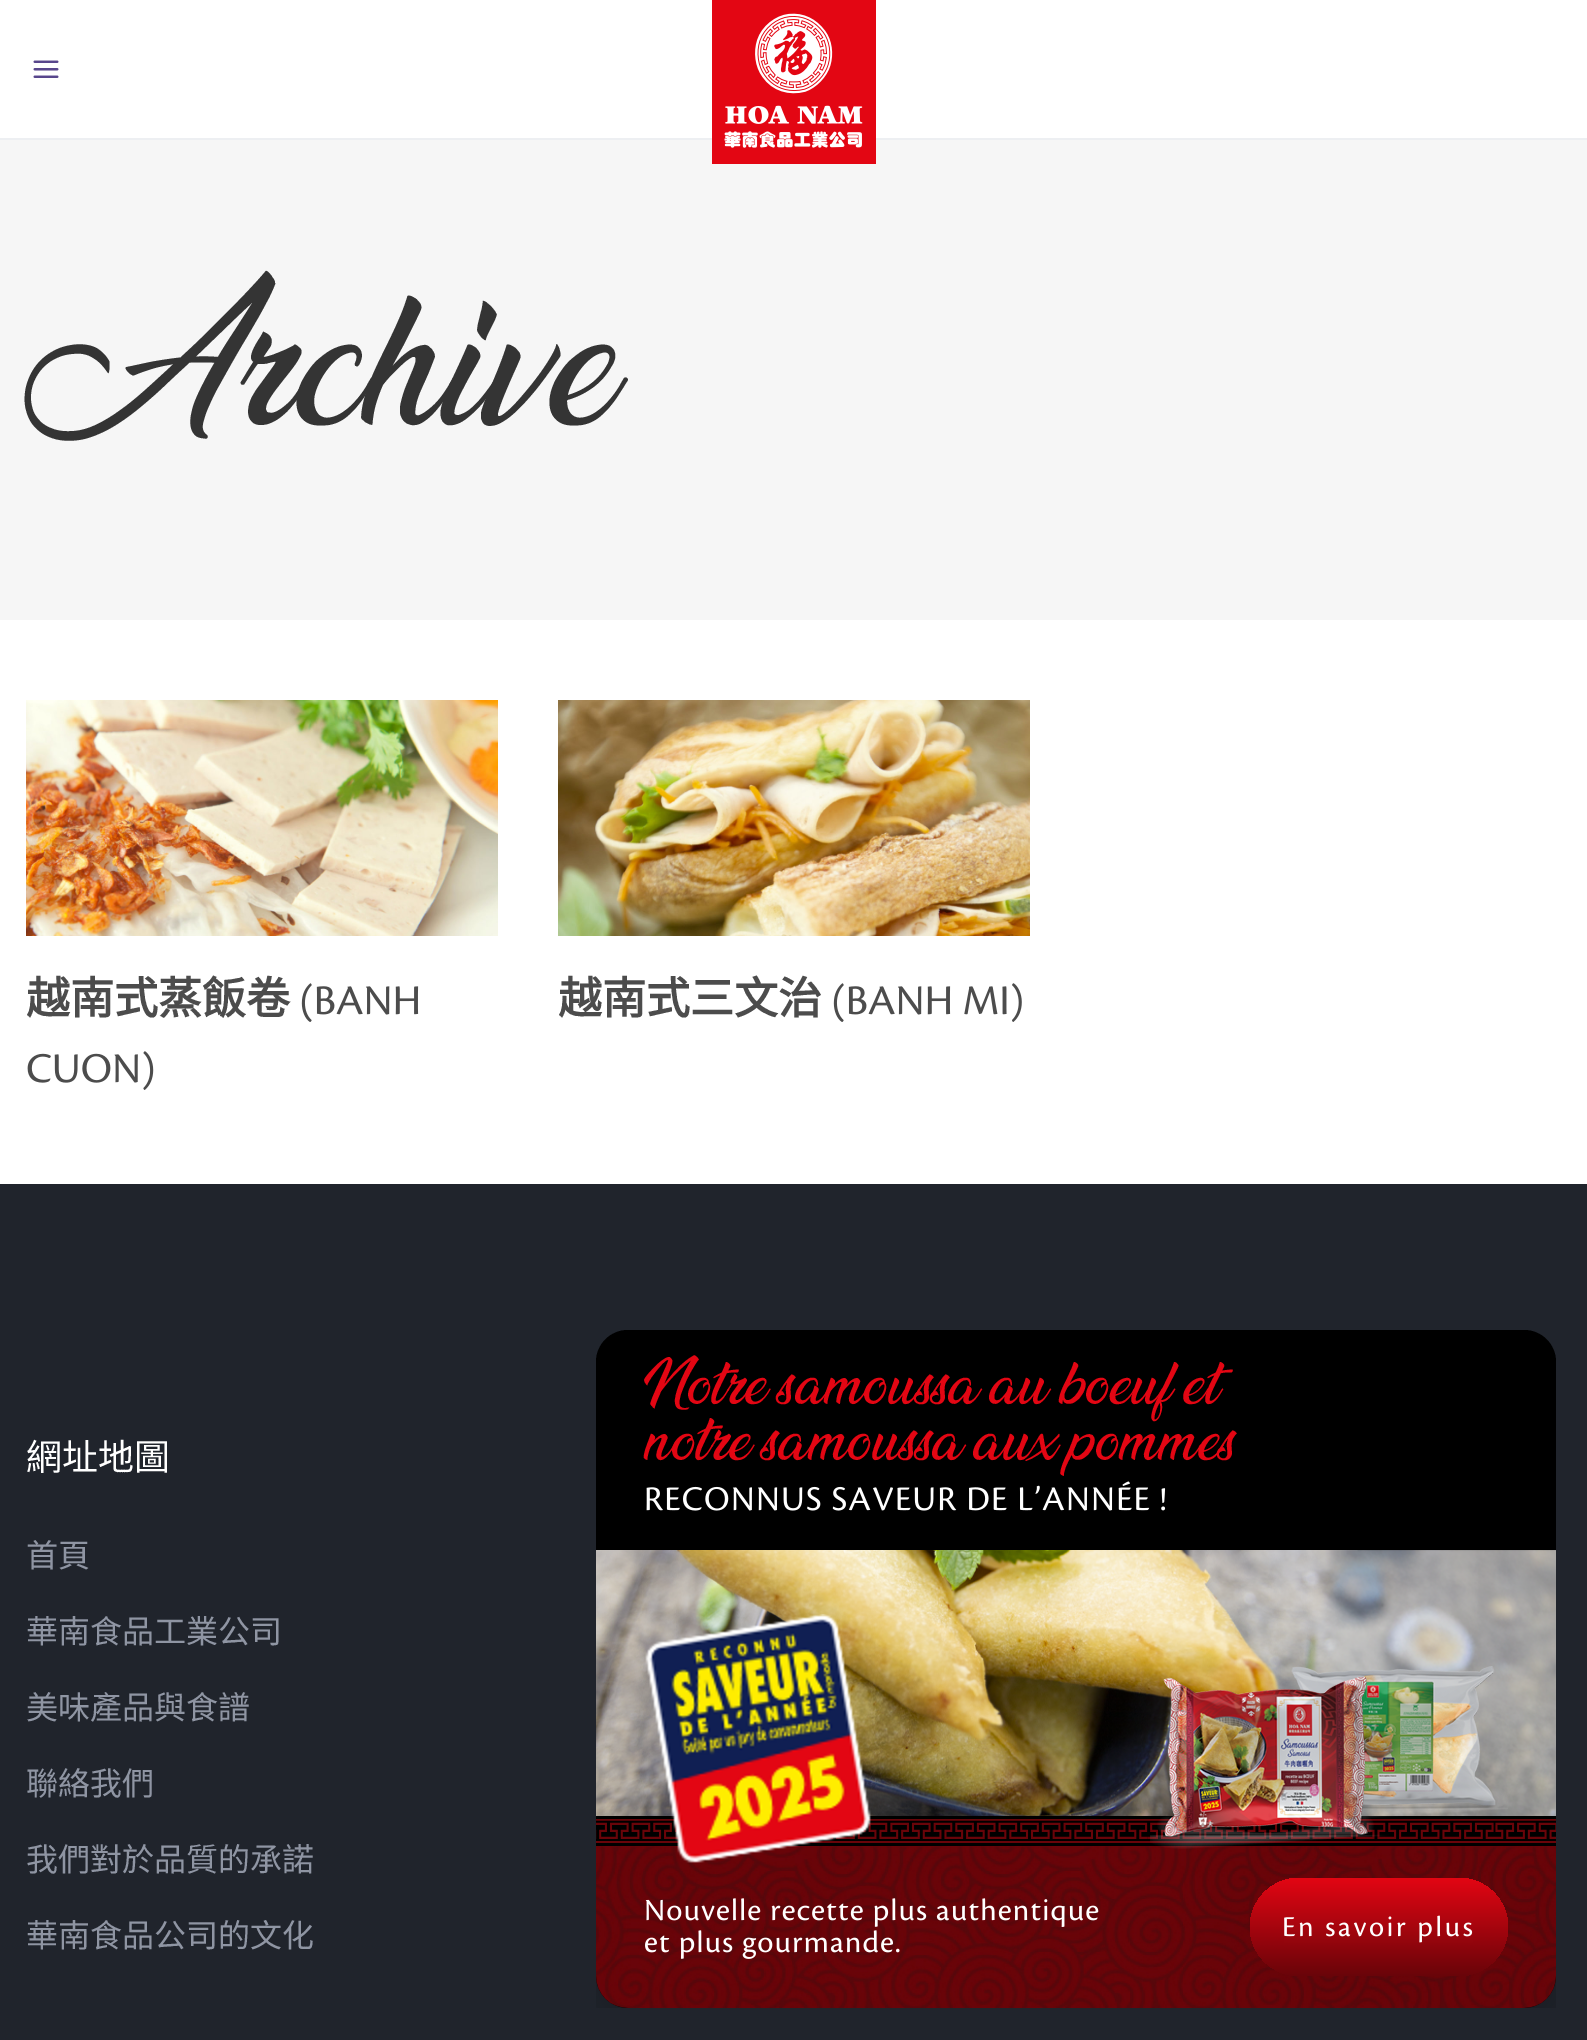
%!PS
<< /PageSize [1587 2040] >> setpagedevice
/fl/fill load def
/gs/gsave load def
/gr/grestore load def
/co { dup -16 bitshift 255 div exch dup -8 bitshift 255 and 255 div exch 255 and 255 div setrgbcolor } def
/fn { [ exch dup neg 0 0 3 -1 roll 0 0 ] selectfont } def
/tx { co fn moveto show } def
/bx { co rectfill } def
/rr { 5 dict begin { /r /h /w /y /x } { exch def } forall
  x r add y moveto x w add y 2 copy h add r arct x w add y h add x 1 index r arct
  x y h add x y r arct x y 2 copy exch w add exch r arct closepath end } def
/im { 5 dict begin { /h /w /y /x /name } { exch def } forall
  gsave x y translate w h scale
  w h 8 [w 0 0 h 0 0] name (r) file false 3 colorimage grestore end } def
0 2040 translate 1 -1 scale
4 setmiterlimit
0 0 1587 2040 16#FFFFFF bx
0 138 1587 2 16#EDEFF2 bx
(media/1.raw) 33 60 26 18 im
0 140 1587 480 16#F6F6F6 bx
(media/2.raw) 712 0 164 164 im
(media/3.raw) 26 700 472 236 im
(media/4.raw) 301 983 118 39 im
(media/5.raw) 27 1051 127 39 im
(media/6.raw) 558 700 472 236 im
(media/7.raw) 833 983 189 39 im
0 1184 1587 856 16#20242C bx
16#000000 co
596 1330 960 678 32 rr fl
(media/8.raw) 646 1481 520 30 im
(media/9.raw) 596 1550 960 266 im
(media/12.raw) 596 1819 960 24 im
(media/13.raw) 596 1846 960 162 im
(media/10.raw) 645 1614 226 249 im
(media/11.raw) 1150 1666 358 183 im
(media/14.raw) 645 1898 454 29 im
(media/15.raw) 645 1930 255 29 im
gs 1250 1878 258 98 49 rr clip newpath
<< /ShadingType 2 /ColorSpace /DeviceRGB /Coords [1379 1878 1379 1976] /Extend [true true] /Function << /FunctionType 2 /Domain [0 1] /C0 [.89 .024 .075] /C1 [.412 .016 .035] /N 1 >> >> shfill gr
(media/16.raw) 1284 1915 189 28 im
(Archive) 26 425 /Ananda-Regular 160 16#343434 tx
(越南式蒸飯卷) 26 1014 /NotoSansCJKSC-Bold 44 16#4C4C4C tx
(越南式三文治) 558 1014 /NotoSansCJKSC-Bold 44 16#4C4C4C tx
(網址地圖) 26 1470 /NotoSansCJKSC-Regular 36 16#FFFFFF tx
(首頁) 26 1567 /NotoSansCJKSC-Regular 32 16#8F95A3 tx
(華南食品工業公司) 26 1643 /NotoSansCJKSC-Regular 32 16#8F95A3 tx
(美味產品與食譜) 26 1719 /NotoSansCJKSC-Regular 32 16#8F95A3 tx
(聯絡我們) 26 1795 /NotoSansCJKSC-Regular 32 16#8F95A3 tx
(我們對於品質的承諾) 26 1871 /NotoSansCJKSC-Regular 32 16#8F95A3 tx
(華南食品公司的文化) 26 1947 /NotoSansCJKSC-Regular 32 16#8F95A3 tx
(Notre samoussa au bœuf et) 644 1404 /Ananda-Regular 52 16#E30613 tx
(notre samoussa aux pommes) 644 1460 /Ananda-Regular 52 16#E30613 tx
showpage
